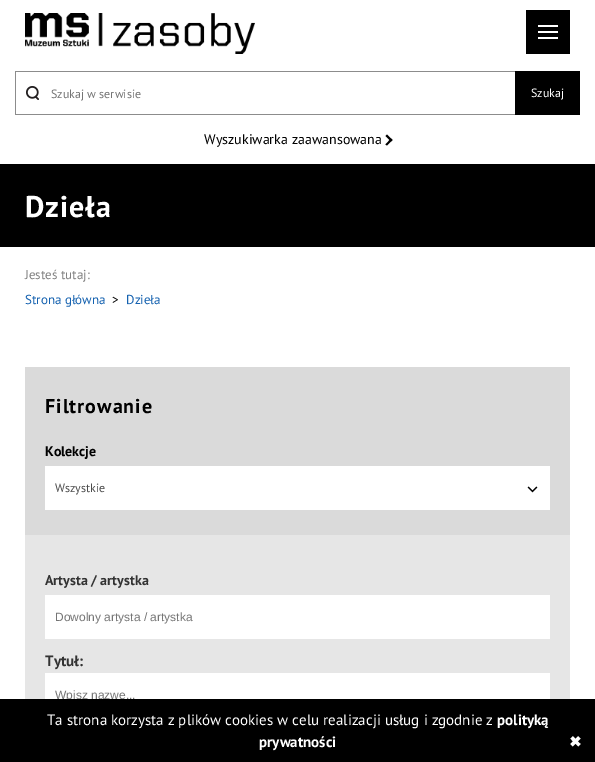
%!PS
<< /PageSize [595 762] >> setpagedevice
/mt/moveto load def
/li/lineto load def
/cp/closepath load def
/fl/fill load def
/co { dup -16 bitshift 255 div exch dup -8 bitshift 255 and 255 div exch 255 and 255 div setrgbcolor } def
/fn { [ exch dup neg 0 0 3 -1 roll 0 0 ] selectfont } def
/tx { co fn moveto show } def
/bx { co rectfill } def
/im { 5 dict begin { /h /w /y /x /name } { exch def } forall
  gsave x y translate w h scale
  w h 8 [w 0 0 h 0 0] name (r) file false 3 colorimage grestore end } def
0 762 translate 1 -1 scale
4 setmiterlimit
0 0 595 762 16#FFFFFF bx
(media/1.raw) 25 13 230 41 im
526 10 44 44 16#000000 bx
538 25 20 2 16#FFFFFF bx
538 31 20 2 16#FFFFFF bx
538 37 20 2 16#FFFFFF bx
(media/2.raw) 26 86 13 14 im
15 71 500 1 16#8C8C8C bx
15 114 500 1 16#8C8C8C bx
15 71 1 44 16#8C8C8C bx
515 71 65 44 16#000000 bx
385.5 136 mt 387 134.5 li 392.5 140 li 391 141.5 li cp fl
385.5 144.5 mt 391 138.5 li 392.5 140 li 387 145.5 li cp fl
0 164 595 83 16#000000 bx
25 367 545 168 16#DADADA bx
45 466 505 44 16#FFFFFF bx
(media/3.raw) 527 486 11 7 im
25 535 545 164 16#E6E6E6 bx
45 595 505 44 16#FFFFFF bx
45 673 505 26 16#FFFFFF bx
(Szukaj w serwisie) 51 98 /PTSans-Regular 12 16#757575 tx
(Szukaj) 531 97 /PTSans-Regular 12 16#FFFFFF tx
(Wyszukiwarka zaawansowana) 204 144 /PTSans-Regular 14 16#000000 tx
/PTSans-Bold 30 fn
16#FFFFFF co
25 217 mt 1 0 (Dzieła) ashow
(Jesteś tutaj:) 25 279 /PTSans-Regular 13 16#808080 tx
(Strona główna) 25 304 /PTSans-Regular 13 16#1562B0 tx
(>) 112 304 /PTSans-Regular 13 16#000000 tx
(Dzieła) 126 304 /PTSans-Regular 13 16#1562B0 tx
/PTSans-Bold 20 fn
16#000000 co
45 413 mt 1 0 (Filtrowanie) ashow
(Kolekcje) 45 456 /PTSans-Bold 14 16#000000 tx
(Wszystkie) 55 492 /PTSans-Regular 12 16#4C4C4C tx
(Artysta / artystka) 45 585 /PTSans-Bold 14 16#333333 tx
(Dowolny artysta / artystka) 55 621 /LiberationSans-Regular 12 16#757575 tx
(Tytuł:) 45 666 /PTSans-Bold 15 16#333333 tx
(Wpisz nazwę...) 55 699 /LiberationSans-Regular 12 16#757575 tx
0 699 595 63 16#000000 bx
(Ta strona korzysta z plików cookies w celu realizacji usług i zgodnie z) 47 725 /PTSans-Regular 15 16#FFFFFF tx
(polityką) 497 725 /PTSans-Bold 15 16#FFFFFF tx
(prywatności) 259 747 /PTSans-Bold 15 16#FFFFFF tx
(✖) 569 747 /DejaVuSans-Bold 15 16#FFFFFF tx
showpage
